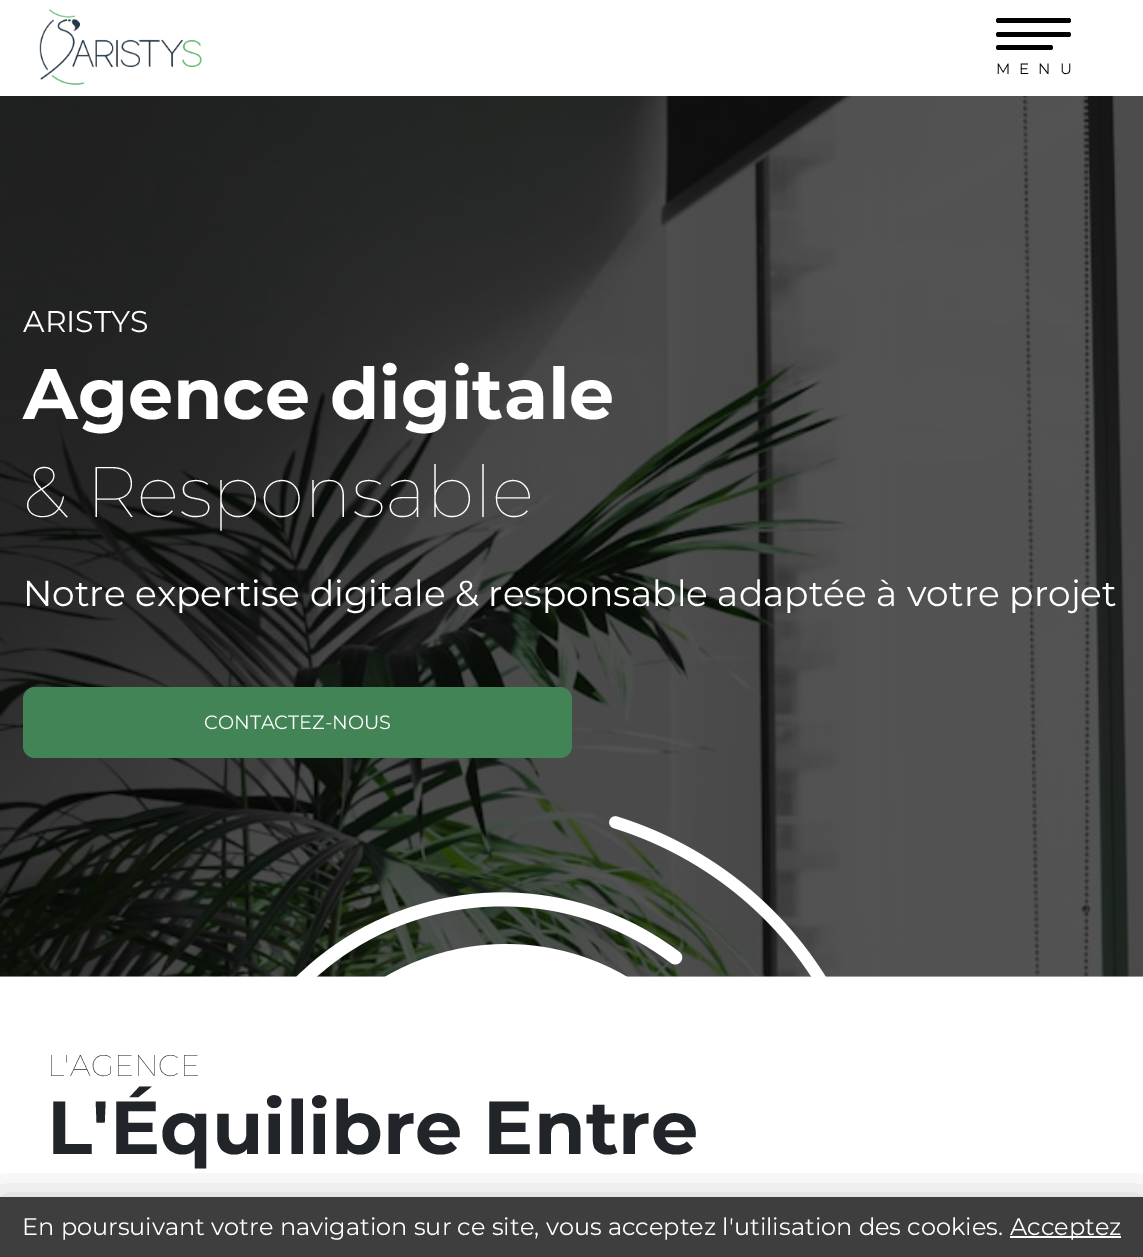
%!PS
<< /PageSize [1143 1257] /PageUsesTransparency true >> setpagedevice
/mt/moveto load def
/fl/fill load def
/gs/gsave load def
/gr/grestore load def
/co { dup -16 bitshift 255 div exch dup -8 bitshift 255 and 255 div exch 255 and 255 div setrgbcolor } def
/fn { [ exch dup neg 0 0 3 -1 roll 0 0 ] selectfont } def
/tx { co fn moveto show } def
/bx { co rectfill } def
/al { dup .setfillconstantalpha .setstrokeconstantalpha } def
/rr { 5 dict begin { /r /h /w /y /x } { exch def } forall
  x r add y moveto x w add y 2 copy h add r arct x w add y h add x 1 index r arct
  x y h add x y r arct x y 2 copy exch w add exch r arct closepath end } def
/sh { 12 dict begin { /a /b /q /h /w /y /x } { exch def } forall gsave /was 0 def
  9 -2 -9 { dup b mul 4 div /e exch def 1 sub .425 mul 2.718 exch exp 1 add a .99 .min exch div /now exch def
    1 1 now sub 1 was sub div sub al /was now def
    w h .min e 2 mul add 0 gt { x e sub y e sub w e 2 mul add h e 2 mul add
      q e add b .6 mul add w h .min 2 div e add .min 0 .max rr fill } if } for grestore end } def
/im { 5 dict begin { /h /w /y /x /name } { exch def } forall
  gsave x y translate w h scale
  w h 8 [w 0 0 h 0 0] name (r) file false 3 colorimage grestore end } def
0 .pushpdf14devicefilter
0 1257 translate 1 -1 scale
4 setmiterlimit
0 0 1143 1257 16#FFFFFF bx
0 976 1143 1 16#B3B3B3 bx
(media/1.raw) 39 9 163 77 im
16#000000 co
996 18 75 5 2.5 rr fl
996 32 75 5 2.5 rr fl
996 45 57 5 2.5 rr fl
(media/2.raw) 0 96 1143 881 im
16#428456 co
23 687 549 71 12 rr fl
(media/3.raw) 296 816 530 161 im
gs
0 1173 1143 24 rectclip
16#000000 co
0 1197 1143 60 0 19 .2 sh
gr
0.9 al
0 1197 1143 60 16#292929 bx
1 al
1010 1236 111 2 16#FFFFFF bx
/Montserrat-Regular 15 fn
16#000000 co
996 74 mt 9 0 (MENU) ashow
(ARISTYS) 23 332 /Montserrat-Regular 30 16#FFFFFF tx
(Agence digitale) 23 419 /Montserrat-Bold 71.5 16#FFFFFF tx
(& Responsable) 23 517 /Montserrat-Thin 71.5 16#FFFFFF tx
(Notre expertise digitale & responsable adaptée à votre projet) 23 606 /Montserrat-Regular 36 16#FFFFFF tx
(CONTACTEZ-NOUS) 204 729 /Montserrat-Regular 19.25 16#FFFFFF tx
(L'AGENCE) 47 1076 /Montserrat-Thin 30 16#212529 tx
(L'Équilibre Entre) 47 1154 /Montserrat-Bold 75 16#212529 tx
(En poursuivant votre navigation sur ce site, vous acceptez l'utilisation des cookies.) 22 1235 /Montserrat-Regular 24 16#FFFFFF tx
(Acceptez) 1010 1235 /Montserrat-Regular 24 16#FFFFFF tx
.poppdf14devicefilter showpage
